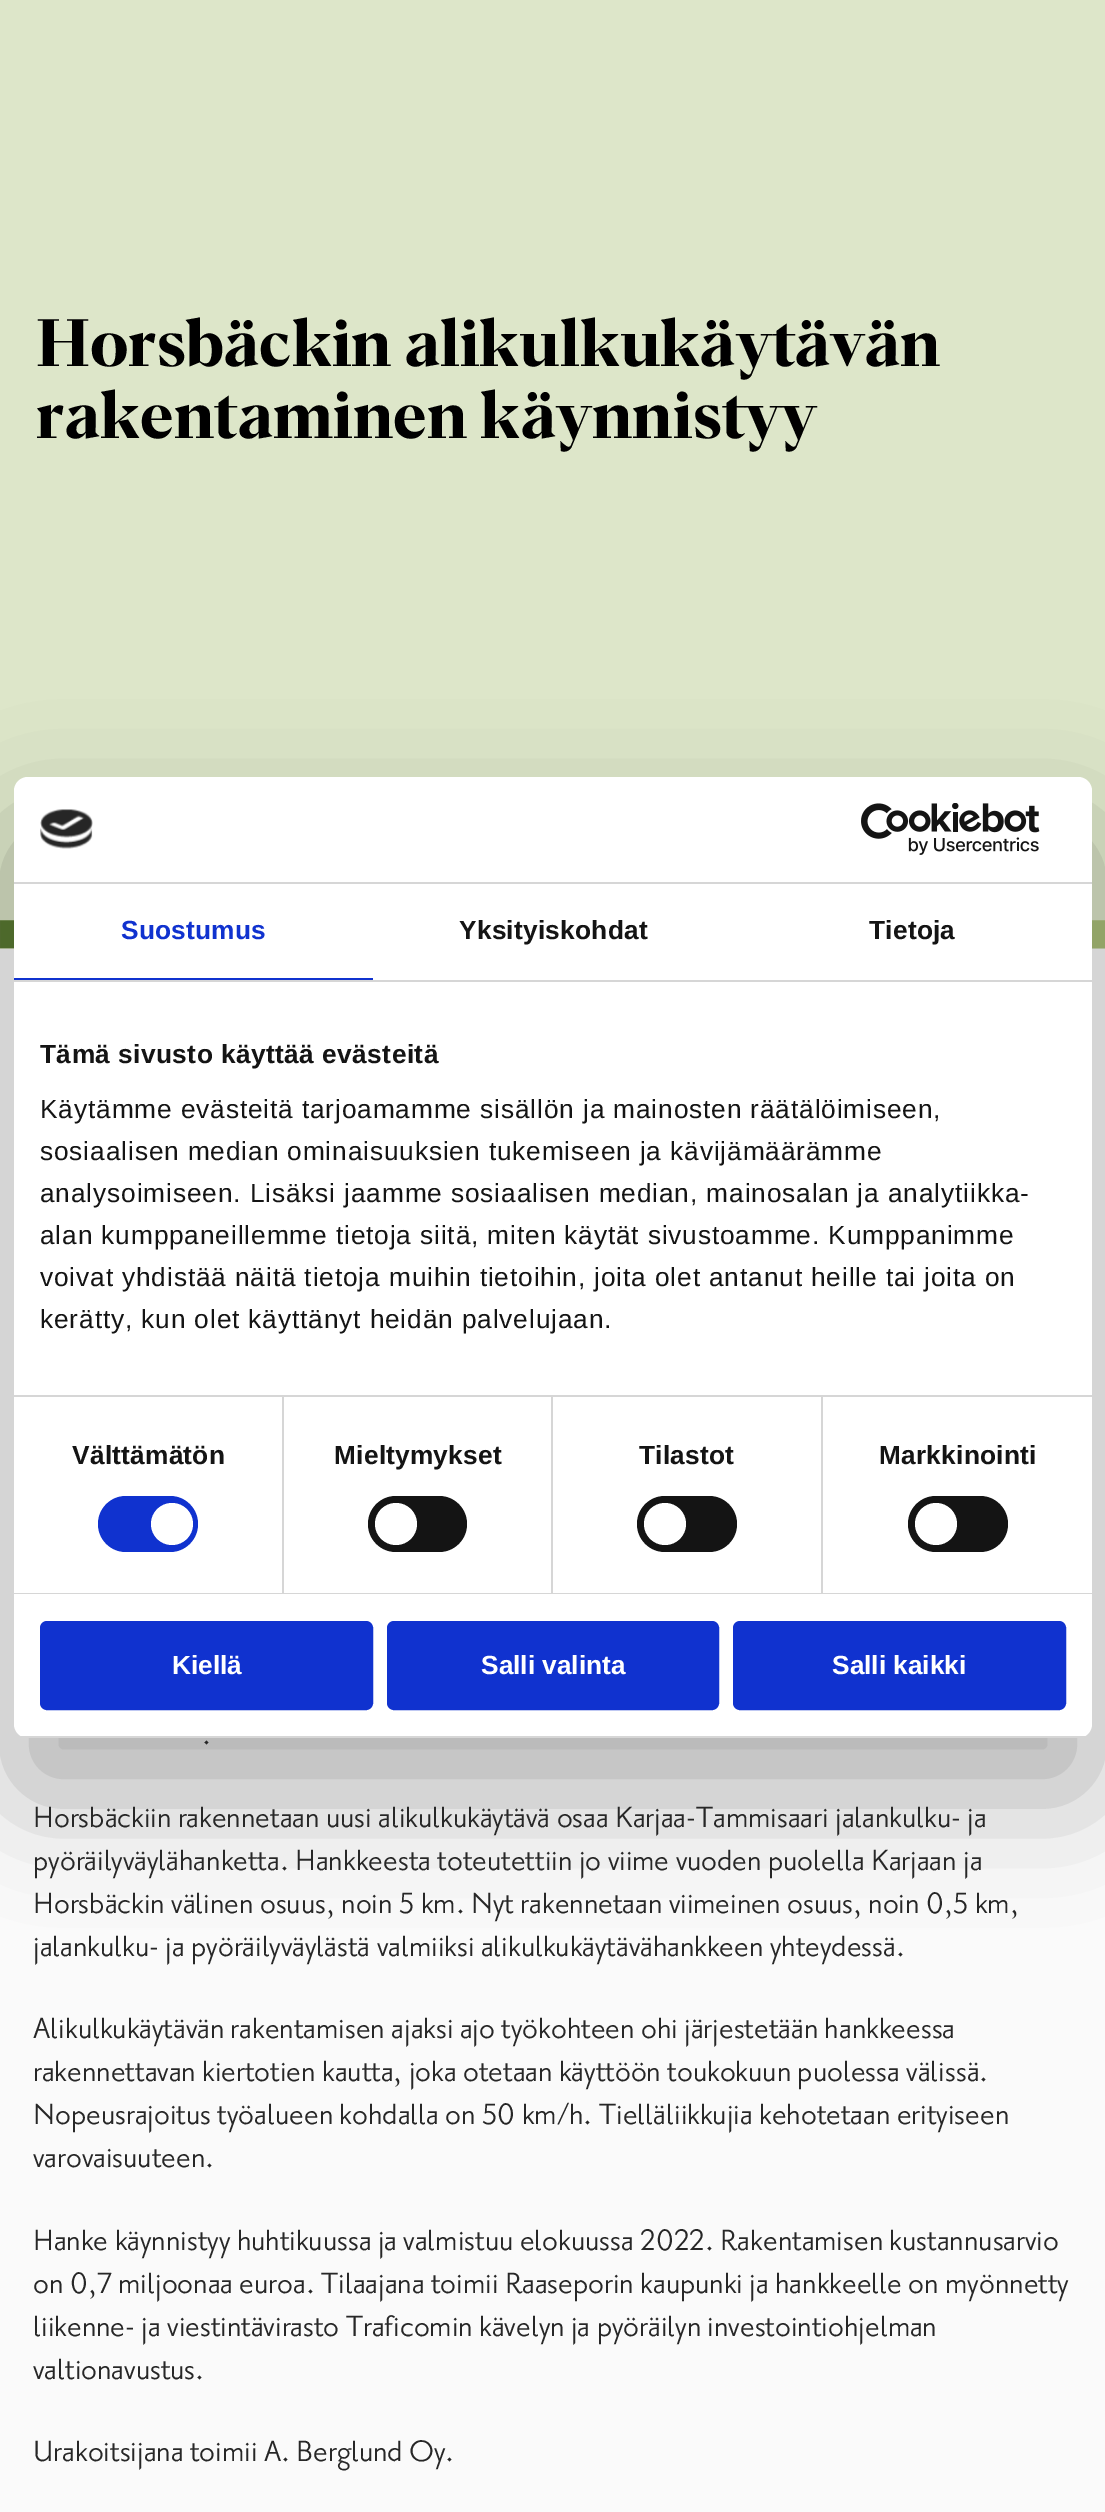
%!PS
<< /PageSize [1105 2512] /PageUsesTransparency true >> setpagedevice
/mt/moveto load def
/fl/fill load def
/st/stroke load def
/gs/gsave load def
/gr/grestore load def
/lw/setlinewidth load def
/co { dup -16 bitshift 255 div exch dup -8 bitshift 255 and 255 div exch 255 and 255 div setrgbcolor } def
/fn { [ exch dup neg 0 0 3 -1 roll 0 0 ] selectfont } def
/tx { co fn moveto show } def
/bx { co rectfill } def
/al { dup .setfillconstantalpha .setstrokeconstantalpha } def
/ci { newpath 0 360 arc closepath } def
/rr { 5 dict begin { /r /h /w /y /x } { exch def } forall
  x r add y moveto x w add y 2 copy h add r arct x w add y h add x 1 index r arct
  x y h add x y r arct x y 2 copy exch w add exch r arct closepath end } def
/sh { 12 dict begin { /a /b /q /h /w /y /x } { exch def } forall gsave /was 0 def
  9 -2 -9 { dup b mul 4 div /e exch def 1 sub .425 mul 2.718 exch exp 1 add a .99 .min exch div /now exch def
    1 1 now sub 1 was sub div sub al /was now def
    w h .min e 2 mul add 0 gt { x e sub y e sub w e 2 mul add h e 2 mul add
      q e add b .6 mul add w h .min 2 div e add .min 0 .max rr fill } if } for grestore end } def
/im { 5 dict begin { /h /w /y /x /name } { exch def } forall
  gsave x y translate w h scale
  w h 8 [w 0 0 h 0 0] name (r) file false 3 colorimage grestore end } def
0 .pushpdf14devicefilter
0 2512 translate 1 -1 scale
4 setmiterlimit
0 0 1105 2512 16#FAFAFA bx
0 0 1105 949 16#DDE6C9 bx
(media/1.raw) 0 920 1105 29 im
16#000000 co
14 833 1078 961 14 59.5 .3 sh
16#FFFFFF co
14 777 1078 961 14 rr fl
14 882 1078 2 16#D6D6D6 bx
(media/2.raw) 40 809 53 40 im
(media/3.raw) 861 803 179 52 im
14 980 1078 2 16#D6D6D6 bx
14 978 359 2 16#1032CF bx
14 1395 1078 2 16#D6D6D6 bx
14 1593 1078 1 16#D6D6D6 bx
282 1397 2 196 16#D6D6D6 bx
16#1032CF co
98 1496 100 56 28 rr fl
16#FFFFFF co
172 1524 21 ci fl
551 1397 2 196 16#D6D6D6 bx
16#141414 co
368 1496 99 56 28 rr fl
16#FFFFFF co
396 1524 21 ci fl
821 1397 2 196 16#D6D6D6 bx
16#141414 co
637 1496 100 56 28 rr fl
16#FFFFFF co
665 1524 21 ci fl
16#141414 co
908 1496 100 56 28 rr fl
16#FFFFFF co
936 1524 21 ci fl
gs
14 777 1078 961 14 rr clip newpath
14 1736 1078 2 16#D6D6D6 bx
gr
16#1032CF co
42 1623 329 85 5 rr gs fl gr
4 lw
st
389 1623 328 85 5 rr gs fl gr
st
735 1623 329 85 5 rr gs fl gr
st
(Horsbäckin alikulkukäytävän) 36 366 /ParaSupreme-Bold 65.4 16#000000 tx
(rakentaminen käynnistyy) 36 438 /ParaSupreme-Bold 65.4 16#000000 tx
(.) 202 1744 /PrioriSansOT-Regular 35.85 16#272727 tx
(Horsbäckiin rakennetaan uusi alikulkukäytävä osaa Karjaa-Tammisaari jalankulku- ja) 33 1827 /PrioriSansOT-Regular 35.85 16#272727 tx
(pyöräilyväylähanketta. Hankkeesta toteutettiin jo viime vuoden puolella Karjaan ja) 33 1870 /PrioriSansOT-Regular 35.85 16#272727 tx
(Horsbäckin välinen osuus, noin 5 km. Nyt rakennetaan viimeinen osuus, noin 0,5 km,) 33 1913 /PrioriSansOT-Regular 35.85 16#272727 tx
(jalankulku- ja pyöräilyväylästä valmiiksi alikulkukäytävähankkeen yhteydessä.) 33 1956 /PrioriSansOT-Regular 35.85 16#272727 tx
(Alikulkukäytävän rakentamisen ajaksi ajo työkohteen ohi järjestetään hankkeessa) 33 2038 /PrioriSansOT-Regular 35.85 16#272727 tx
(rakennettavan kiertotien kautta, joka otetaan käyttöön toukokuun puolessa välissä.) 33 2081 /PrioriSansOT-Regular 35.85 16#272727 tx
(Nopeusrajoitus työalueen kohdalla on 50 km/h. Tielläliikkujia kehotetaan erityiseen) 33 2124 /PrioriSansOT-Regular 35.85 16#272727 tx
(varovaisuuteen.) 33 2167 /PrioriSansOT-Regular 35.85 16#272727 tx
(Hanke käynnistyy huhtikuussa ja valmistuu elokuussa 2022. Rakentamisen kustannusarvio) 33 2250 /PrioriSansOT-Regular 35.85 16#272727 tx
(on 0,7 miljoonaa euroa. Tilaajana toimii Raaseporin kaupunki ja hankkeelle on myönnetty) 33 2293 /PrioriSansOT-Regular 35.85 16#272727 tx
(liikenne- ja viestintävirasto Traficomin kävelyn ja pyöräilyn investointiohjelman) 33 2336 /PrioriSansOT-Regular 35.85 16#272727 tx
(valtionavustus.) 33 2379 /PrioriSansOT-Regular 35.85 16#272727 tx
(Urakoitsijana toimii A. Berglund Oy.) 33 2461 /PrioriSansOT-Regular 35.85 16#272727 tx
/LiberationSans-Bold 26.25 fn
16#1032CF co
121 939 mt .25 0 (Suostumus) ashow
16#141414 co
459 939 mt .25 0 (Yksityiskohdat) ashow
869 939 mt .25 0 (Tietoja) ashow
40 1063 mt .45 0 (Tämä sivusto käyttää evästeitä) ashow
/LiberationSans-Regular 26.25 fn
40 1118 mt .88 0 (Käytämme evästeitä tarjoamamme sisällön ja mainosten räätälöimiseen,) ashow
40 1160 mt .88 0 (sosiaalisen median ominaisuuksien tukemiseen ja kävijämäärämme) ashow
40 1202 mt .88 0 (analysoimiseen. Lisäksi jaamme sosiaalisen median, mainosalan ja analytiikka-) ashow
40 1244 mt .88 0 (alan kumppaneillemme tietoja siitä, miten käytät sivustoamme. Kumppanimme) ashow
40 1286 mt .88 0 (voivat yhdistää näitä tietoja muihin tietoihin, joita olet antanut heille tai joita on) ashow
40 1328 mt .88 0 (kerätty, kun olet käyttänyt heidän palvelujaan.) ashow
/LiberationSans-Bold 26.25 fn
72 1464 mt .25 0 (Välttämätön) ashow
334 1464 mt .25 0 (Mieltymykset) ashow
639 1464 mt .25 0 (Tilastot) ashow
879 1464 mt .25 0 (Markkinointi) ashow
(Kiellä) 172 1674 /LiberationSans-Bold 26.25 16#FFFFFF tx
(Salli valinta) 481 1674 /LiberationSans-Bold 26.25 16#FFFFFF tx
(Salli kaikki) 832 1674 /LiberationSans-Bold 26.25 16#FFFFFF tx
.poppdf14devicefilter showpage
